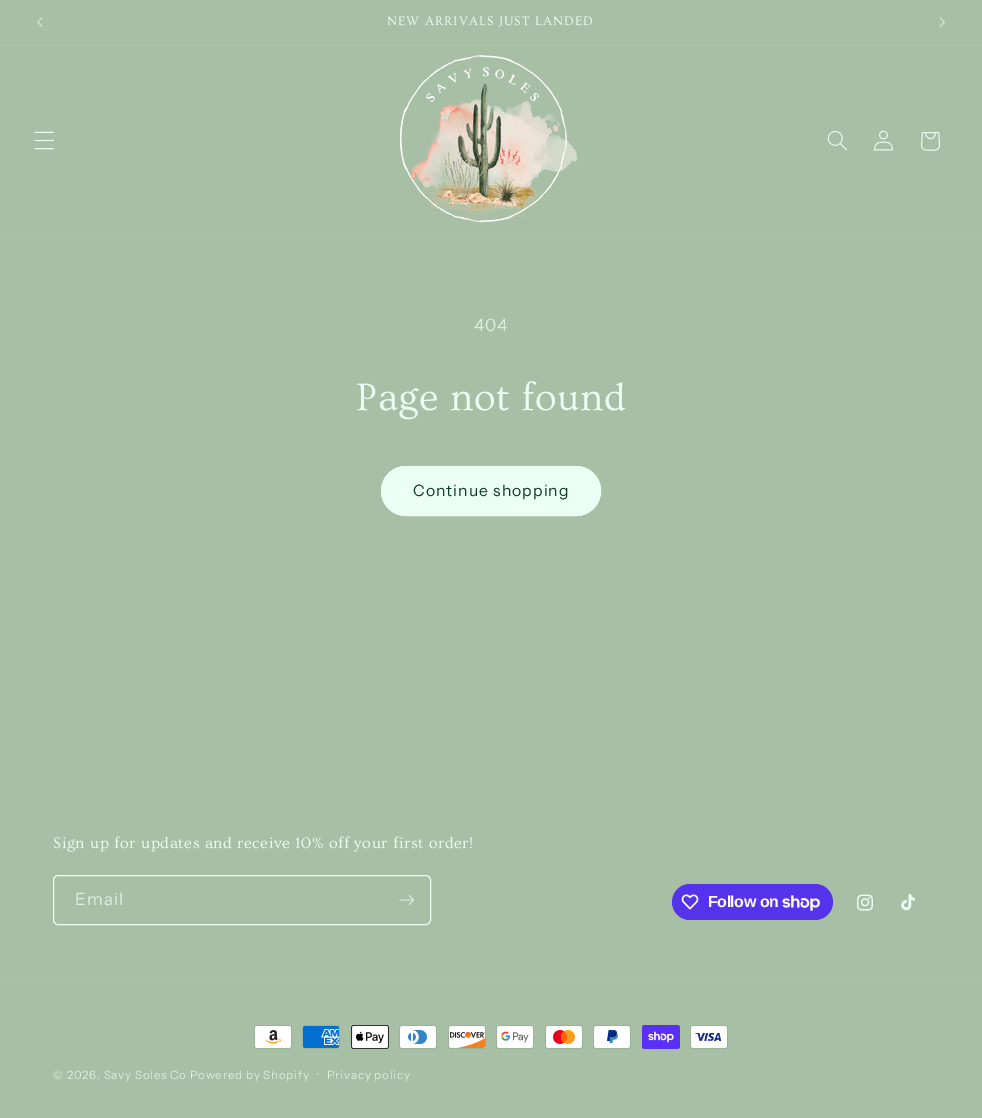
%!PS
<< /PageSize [982 1118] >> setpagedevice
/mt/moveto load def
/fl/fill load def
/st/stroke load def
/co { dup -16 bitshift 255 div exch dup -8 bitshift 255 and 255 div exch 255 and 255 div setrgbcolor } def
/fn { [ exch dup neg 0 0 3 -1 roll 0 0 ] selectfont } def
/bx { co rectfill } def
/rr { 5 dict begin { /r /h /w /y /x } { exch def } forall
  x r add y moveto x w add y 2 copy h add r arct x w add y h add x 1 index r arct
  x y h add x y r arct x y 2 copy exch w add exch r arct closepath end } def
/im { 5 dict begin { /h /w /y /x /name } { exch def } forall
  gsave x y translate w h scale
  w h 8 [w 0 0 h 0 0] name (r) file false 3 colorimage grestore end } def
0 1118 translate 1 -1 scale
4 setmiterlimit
0 0 982 1118 16#A7BFA5 bx
0 44 982 1 16#ACC4AB bx
(media/1.raw) 37 17 6 10 im
(media/2.raw) 939 17 6 10 im
0 237 982 1 16#ACC4AB bx
(media/3.raw) 34 131 20 19 im
(media/4.raw) 399 55 179 168 im
(media/5.raw) 827 130 20 21 im
(media/6.raw) 874 130 19 21 im
(media/7.raw) 921 132 20 19 im
16#EBFFF4 co
381 466 220 50 25 rr fl
381.5 466.5 219 49 24.5 rr st
53.5 875.5 377 49 4.5 rr st
(media/8.raw) 399 895 15 10 im
16#5433EB co
672 884 161 36 18 rr fl
(media/9.raw) 681 894 18 16 im
(media/10.raw) 782 895 38 16 im
(media/11.raw) 857 894 16 17 im
(media/12.raw) 901 894 14 17 im
0 977 982 1 16#ACC4AB bx
(media/13.raw) 254 1025 38 24 im
(media/14.raw) 302 1025 38 24 im
(media/15.raw) 351 1025 38 24 im
(media/16.raw) 399 1025 38 24 im
(media/17.raw) 448 1025 38 24 im
(media/18.raw) 496 1025 38 24 im
(media/19.raw) 545 1025 38 24 im
(media/20.raw) 593 1025 38 24 im
(media/21.raw) 642 1025 38 24 im
(media/22.raw) 690 1025 38 24 im
/Ovo-Regular 13 fn
16#EBFFF4 co
387 25 mt 1.05 0 (NEW ARRIVALS JUST LANDED) ashow
/InstrumentSans-Regular 17 fn
16#DAEFE0 co
474 331 mt .5 0 (404) ashow
/Ovo-Regular 40 fn
16#EBFFF4 co
356 410 mt .6 0 (Page not found) ashow
/InstrumentSans-Regular 15.75 fn
16#0E3A27 co
413 496 mt 1.05 0 (Continue shopping) ashow
/Ovo-Regular 16 fn
16#EBFFF4 co
53 848 mt .6 0 (Sign up for updates and receive 10% off your first order!) ashow
/InstrumentSans-Regular 17 fn
16#DAEFE0 co
75 905 mt 1.05 0 (Email) ashow
/LiberationSans-Bold 16 fn
16#FFFFFF co
708 907 mt -.5 0 (Follow on) ashow
/InstrumentSans-Regular 11.55 fn
16#DAEFE0 co
53 1079 mt .75 0 (© 2026, Savy Soles Co Powered by Shopify) ashow
/InstrumentSans-Regular 13 fn
317 1079 mt .75 0 (·) ashow
/InstrumentSans-Regular 11.55 fn
327 1079 mt .75 0 (Privacy policy) ashow
showpage
